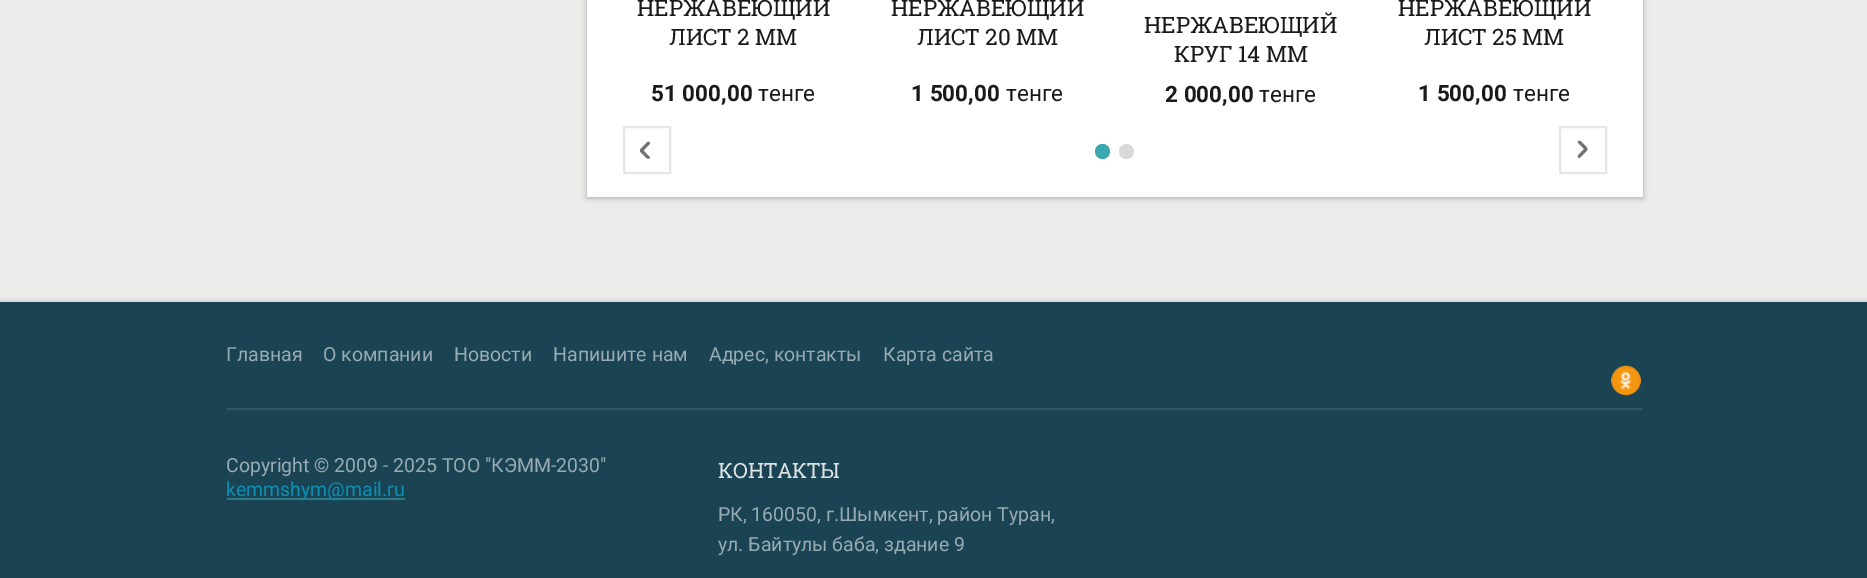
%!PS
<< /PageSize [1867 578] /PageUsesTransparency true >> setpagedevice
/fl/fill load def
/lw/setlinewidth load def
/co { dup -16 bitshift 255 div exch dup -8 bitshift 255 and 255 div exch 255 and 255 div setrgbcolor } def
/fn { [ exch dup neg 0 0 3 -1 roll 0 0 ] selectfont } def
/tx { co fn moveto show } def
/bx { co rectfill } def
/al { dup .setfillconstantalpha .setstrokeconstantalpha } def
/ci { newpath 0 360 arc closepath } def
/rr { 5 dict begin { /r /h /w /y /x } { exch def } forall
  x r add y moveto x w add y 2 copy h add r arct x w add y h add x 1 index r arct
  x y h add x y r arct x y 2 copy exch w add exch r arct closepath end } def
/sh { 12 dict begin { /a /b /q /h /w /y /x } { exch def } forall gsave /was 0 def
  9 -2 -9 { dup b mul 4 div /e exch def 1 sub .425 mul 2.718 exch exp 1 add a .99 .min exch div /now exch def
    1 1 now sub 1 was sub div sub al /was now def
    w h .min e 2 mul add 0 gt { x e sub y e sub w e 2 mul add h e 2 mul add
      q e add b .6 mul add w h .min 2 div e add .min 0 .max rr fill } if } for grestore end } def
/im { 5 dict begin { /h /w /y /x /name } { exch def } forall
  gsave x y translate w h scale
  w h 8 [w 0 0 h 0 0] name (r) file false 3 colorimage grestore end } def
0 .pushpdf14devicefilter
0 578 translate 1 -1 scale
4 setmiterlimit
0 0 1867 578 16#ECECEA bx
16#000000 co
587 -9 1056 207 0 3 .28 sh
587 0 1056 197 16#FFFFFF bx
16#E6E6E6 co
2 lw
624 127 46 46 rectstroke
(media/1.raw) 640 141 10 18 im
1560 127 46 46 rectstroke
(media/2.raw) 1577 140 11 18 im
16#3AA8B0 co
1102.5 151.5 7.5 ci fl
16#D9D9D9 co
1126.5 151.5 7.5 ci fl
16#000000 co
0 303 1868 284 0 3 .28 sh
0 302 1867 276 16#1A4454 bx
227 408 1416 2 16#315765 bx
(media/3.raw) 1611 365 30 31 im
227 498 178 2 16#2C7B87 bx
(НЕРЖАВЕЮЩИЙ) 637 16 /RobotoSlab-Regular 22.5 16#1A1A1A tx
(ЛИСТ 2 ММ) 669 45 /RobotoSlab-Regular 22.5 16#1A1A1A tx
(51 000,00) 651 101 /Roboto-Bold 22.5 16#1A1A1A tx
(тенге) 758 101 /Roboto-Regular 22.5 16#1A1A1A tx
(НЕРЖАВЕЮЩИЙ) 891 16 /RobotoSlab-Regular 22.5 16#1A1A1A tx
(ЛИСТ 20 ММ) 917 45 /RobotoSlab-Regular 22.5 16#1A1A1A tx
(1 500,00) 911 101 /Roboto-Bold 22.5 16#1A1A1A tx
(тенге) 1006 101 /Roboto-Regular 22.5 16#1A1A1A tx
(НЕРЖАВЕЮЩИЙ) 1144 33 /RobotoSlab-Regular 22.5 16#1A1A1A tx
(КРУГ 14 ММ) 1174 62 /RobotoSlab-Regular 22.5 16#1A1A1A tx
(2 000,00) 1165 102 /Roboto-Bold 22.5 16#1A1A1A tx
(тенге) 1259 102 /Roboto-Regular 22.5 16#1A1A1A tx
(НЕРЖАВЕЮЩИЙ) 1398 16 /RobotoSlab-Regular 22.5 16#1A1A1A tx
(ЛИСТ 25 ММ) 1424 45 /RobotoSlab-Regular 22.5 16#1A1A1A tx
(1 500,00) 1418 101 /Roboto-Bold 22.5 16#1A1A1A tx
(тенге) 1513 101 /Roboto-Regular 22.5 16#1A1A1A tx
(Главная) 226 361 /Roboto-Regular 19.5 16#98ABB2 tx
(О компании) 323 361 /Roboto-Regular 19.5 16#98ABB2 tx
(Новости) 454 361 /Roboto-Regular 19.5 16#98ABB2 tx
(Напишите нам) 553 361 /Roboto-Regular 19.5 16#98ABB2 tx
(Адрес, контакты) 709 361 /Roboto-Regular 19.5 16#98ABB2 tx
(Карта сайта) 883 361 /Roboto-Regular 19.5 16#98ABB2 tx
(Copyright © 2009 - 2025 ТОО "КЭММ-2030") 226 472 /Roboto-Regular 19.5 16#98ABB2 tx
(kemmshym@mail.ru) 226 496 /Roboto-Regular 19.5 16#0C8FB2 tx
(КОНТАКТЫ) 718 478 /RobotoSlab-Regular 21 16#DDE3E5 tx
(РК, 160050, г.Шымкент, район Туран,) 718 521 /Roboto-Regular 19.5 16#98ABB2 tx
(ул. Байтулы баба, здание 9) 718 551 /Roboto-Regular 19.5 16#98ABB2 tx
.poppdf14devicefilter showpage
